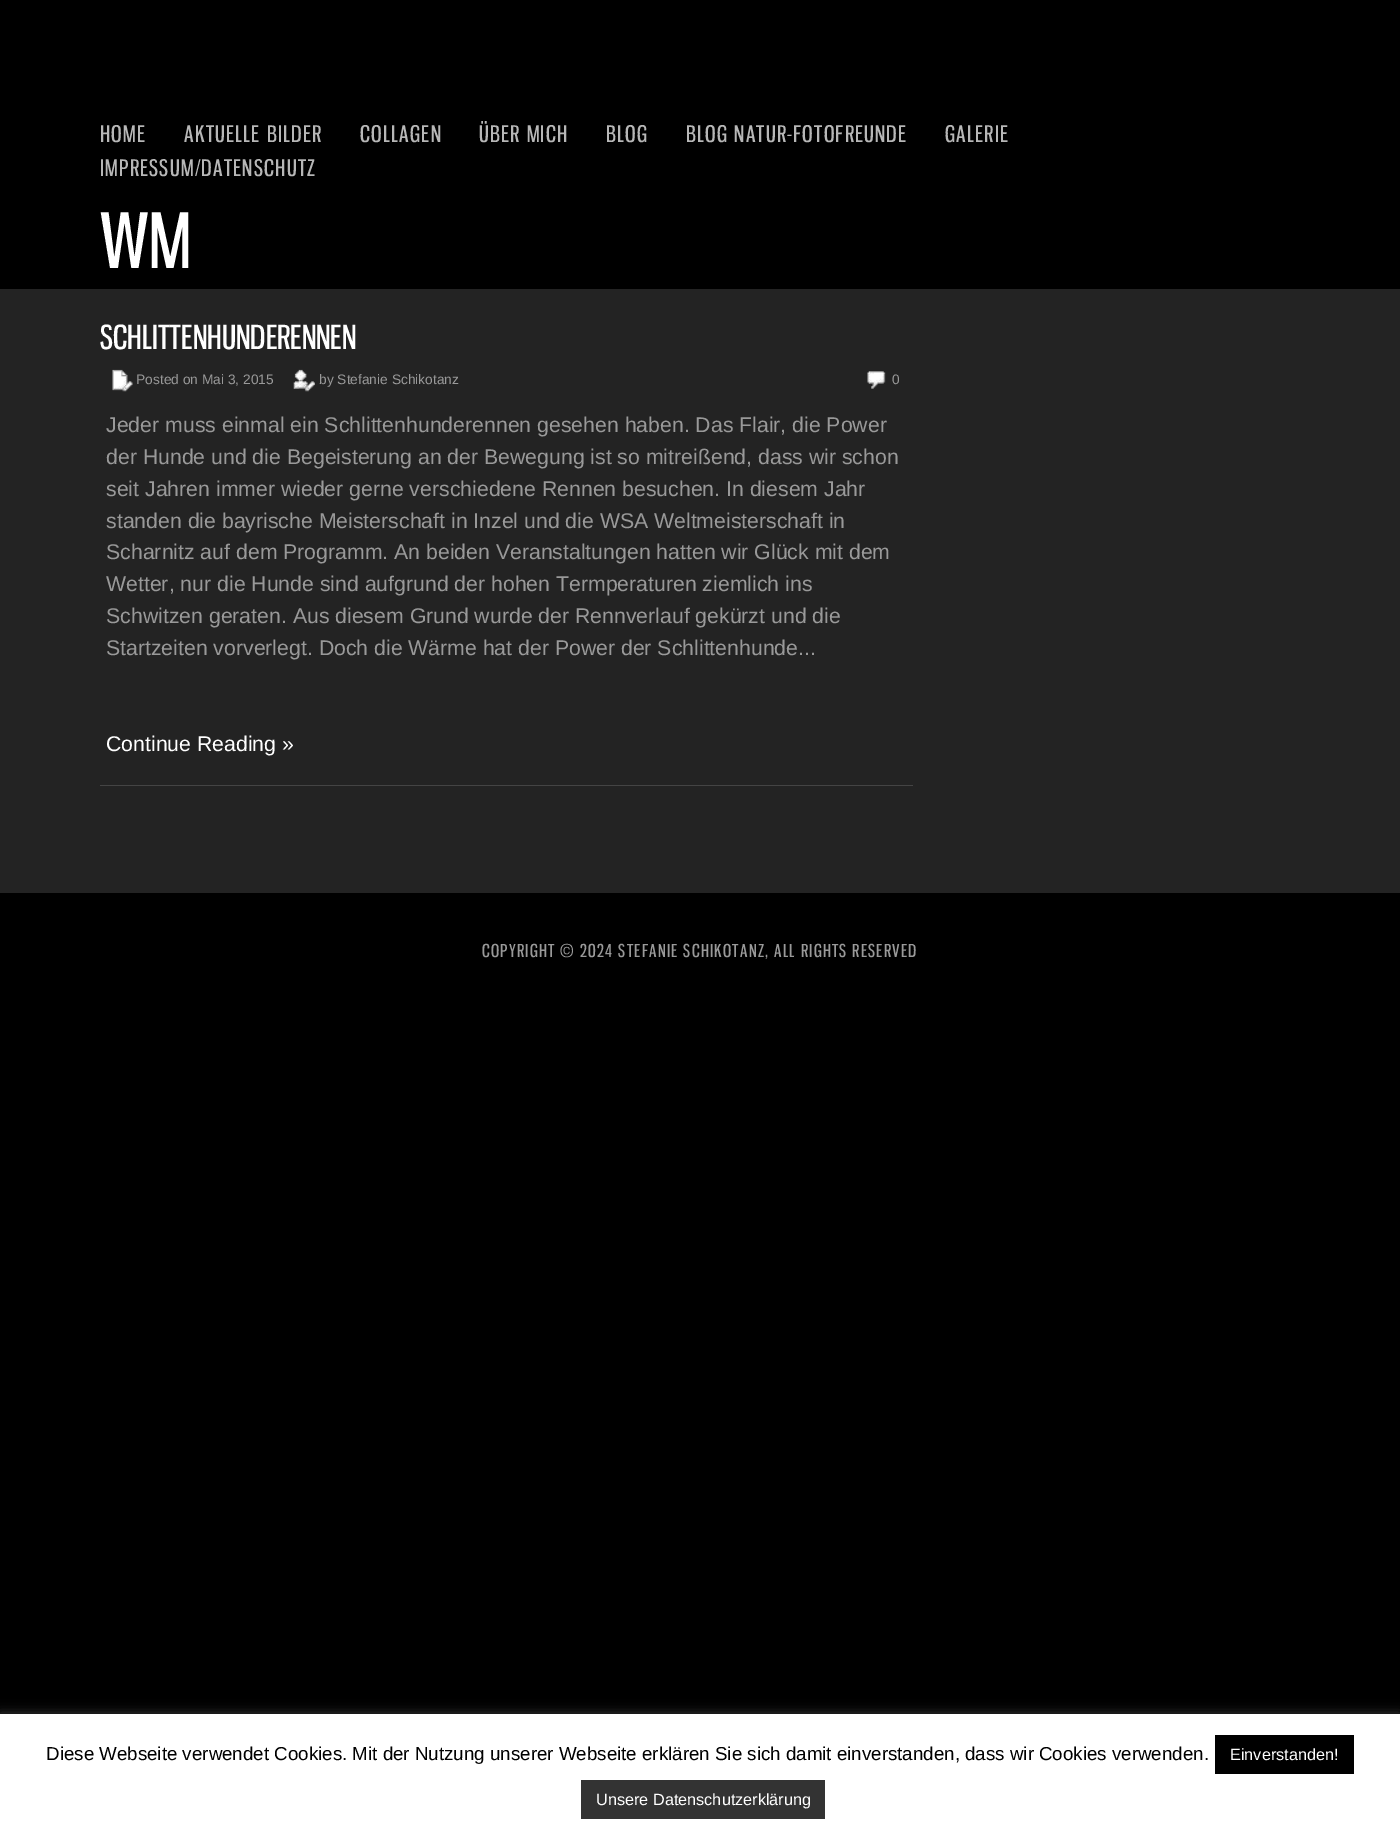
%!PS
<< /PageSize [1400 1833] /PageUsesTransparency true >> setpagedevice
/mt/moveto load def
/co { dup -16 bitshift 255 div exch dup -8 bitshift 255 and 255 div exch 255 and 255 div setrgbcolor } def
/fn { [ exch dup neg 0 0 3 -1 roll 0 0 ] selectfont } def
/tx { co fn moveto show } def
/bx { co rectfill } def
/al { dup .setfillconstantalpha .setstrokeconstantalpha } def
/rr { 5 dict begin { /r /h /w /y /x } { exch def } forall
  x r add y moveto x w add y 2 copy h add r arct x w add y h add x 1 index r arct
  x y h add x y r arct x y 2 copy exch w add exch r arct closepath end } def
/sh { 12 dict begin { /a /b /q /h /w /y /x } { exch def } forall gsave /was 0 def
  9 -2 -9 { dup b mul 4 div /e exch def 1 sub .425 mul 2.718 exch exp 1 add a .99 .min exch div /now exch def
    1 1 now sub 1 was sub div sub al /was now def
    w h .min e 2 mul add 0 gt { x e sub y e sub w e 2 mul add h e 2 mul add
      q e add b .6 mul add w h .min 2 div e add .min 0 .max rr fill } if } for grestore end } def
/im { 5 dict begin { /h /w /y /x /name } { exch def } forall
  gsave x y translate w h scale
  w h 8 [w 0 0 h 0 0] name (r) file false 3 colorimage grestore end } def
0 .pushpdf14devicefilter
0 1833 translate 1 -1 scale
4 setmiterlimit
0 0 1400 1833 16#000000 bx
0 289 1400 604 16#232323 bx
100 785 813 1 16#444444 bx
(media/1.raw) 112 369 21 23 im
(media/2.raw) 293 369 22 23 im
(media/3.raw) 867 371 19 18 im
16#ACABAB co
0 1713 1400 120 0 6 .3 sh
0 1714 1400 119 16#FFFFFF bx
1215 1735 139 39 16#000000 bx
581 1780 244 39 16#333333 bx
/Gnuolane-Regular 22.5 fn
16#B7B7B7 co
100 142 mt 1.25 0 (HOME) ashow
184 142 mt 1.25 0 (AKTUELLE BILDER) ashow
360 142 mt 1.25 0 (COLLAGEN) ashow
479 142 mt 1.25 0 (ÜBER MICH) ashow
606 142 mt 1.25 0 (BLOG) ashow
686 142 mt 1.25 0 (BLOG NATUR-FOTOFREUNDE) ashow
945 142 mt 1.25 0 (GALERIE) ashow
100 176 mt 1.25 0 (IMPRESSUM/DATENSCHUTZ) ashow
(WM) 100 268 /Gnuolane-Regular 75 16#FFFFFF tx
(SCHLITTENHUNDERENNEN) 100 349 /Gnuolane-Regular 32.5 16#FFFFFF tx
(Posted on Mai 3, 2015) 136 384 /LiberationSans-Regular 13.75 16#999999 tx
(by Stefanie Schikotanz) 319 384 /LiberationSans-Regular 13.75 16#999999 tx
(0) 892 384 /LiberationSans-Regular 13.75 16#999999 tx
(Jeder muss einmal ein Schlittenhunderennen gesehen haben. Das Flair, die Power) 106 432 /LiberationSans-Regular 21.25 16#999999 tx
(der Hunde und die Begeisterung an der Bewegung ist so mitreißend, dass wir schon) 106 464 /LiberationSans-Regular 21.25 16#999999 tx
(seit Jahren immer wieder gerne verschiedene Rennen besuchen. In diesem Jahr) 106 496 /LiberationSans-Regular 21.25 16#999999 tx
(standen die bayrische Meisterschaft in Inzel und die WSA Weltmeisterschaft in) 106 528 /LiberationSans-Regular 21.25 16#999999 tx
(Scharnitz auf dem Programm. An beiden Veranstaltungen hatten wir Glück mit dem) 106 559 /LiberationSans-Regular 21.25 16#999999 tx
(Wetter, nur die Hunde sind aufgrund der hohen Termperaturen ziemlich ins) 106 591 /LiberationSans-Regular 21.25 16#999999 tx
(Schwitzen geraten. Aus diesem Grund wurde der Rennverlauf gekürzt und die) 106 623 /LiberationSans-Regular 21.25 16#999999 tx
(Startzeiten vorverlegt. Doch die Wärme hat der Power der Schlittenhunde...) 106 655 /LiberationSans-Regular 21.25 16#999999 tx
(Continue Reading ») 106 751 /LiberationSans-Regular 21.25 16#FFFFFF tx
/Gnuolane-Regular 17.5 fn
16#999999 co
482 957 mt 1.25 0 (COPYRIGHT © 2024 STEFANIE SCHIKOTANZ, ALL RIGHTS RESERVED) ashow
(Diese Webseite verwendet Cookies. Mit der Nutzung unserer Webseite erklären Sie sich damit einverstanden, dass wir Cookies verwenden.) 46 1760 /LiberationSans-Regular 18.75 16#000000 tx
(Einverstanden!) 1230 1760 /LiberationSans-Regular 16.25 16#FFFFFF tx
(Unsere Datenschutzerklärung) 596 1805 /LiberationSans-Regular 16.25 16#FFFFFF tx
.poppdf14devicefilter showpage
